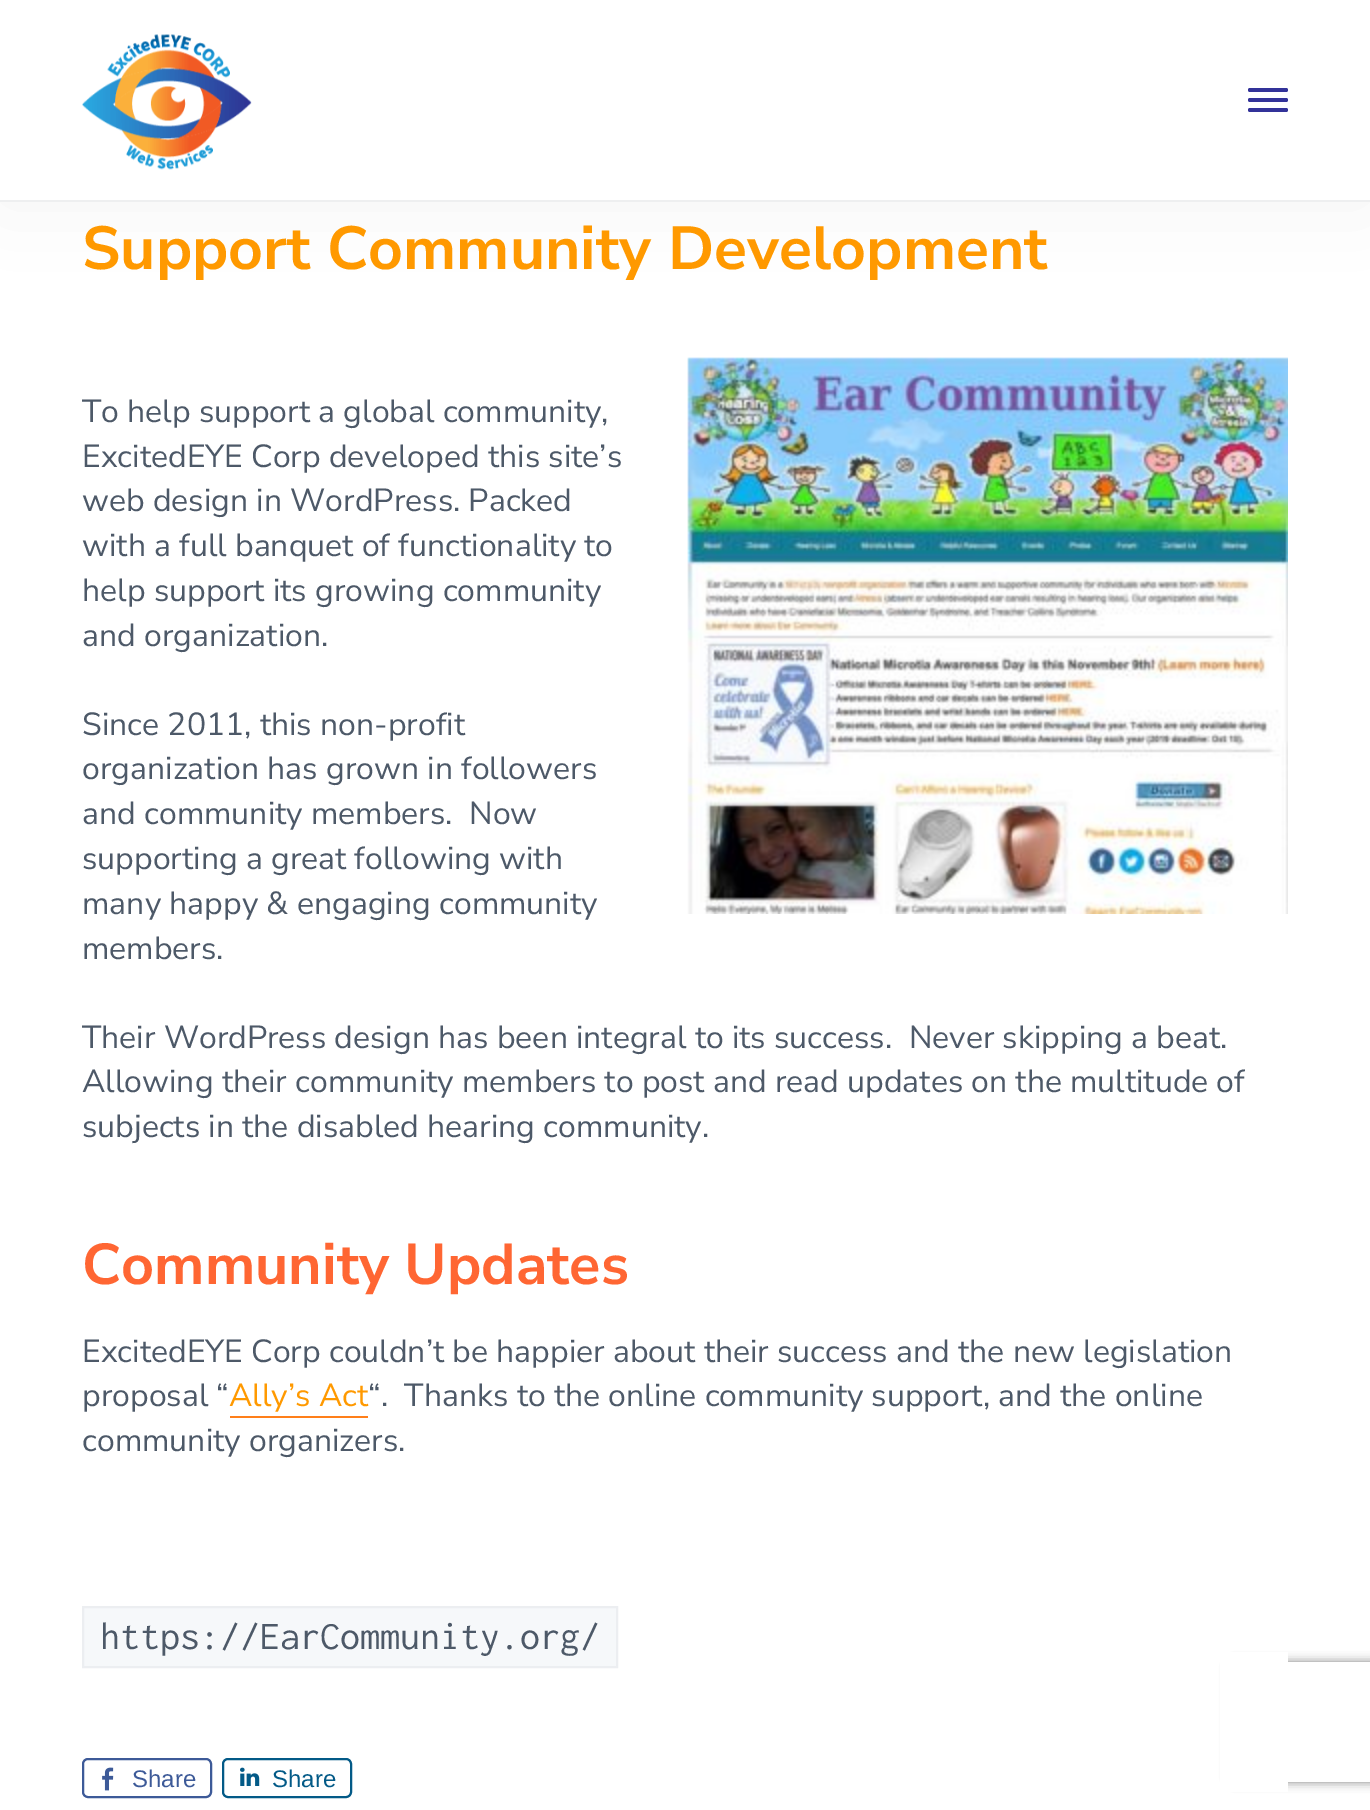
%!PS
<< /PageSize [1370 1810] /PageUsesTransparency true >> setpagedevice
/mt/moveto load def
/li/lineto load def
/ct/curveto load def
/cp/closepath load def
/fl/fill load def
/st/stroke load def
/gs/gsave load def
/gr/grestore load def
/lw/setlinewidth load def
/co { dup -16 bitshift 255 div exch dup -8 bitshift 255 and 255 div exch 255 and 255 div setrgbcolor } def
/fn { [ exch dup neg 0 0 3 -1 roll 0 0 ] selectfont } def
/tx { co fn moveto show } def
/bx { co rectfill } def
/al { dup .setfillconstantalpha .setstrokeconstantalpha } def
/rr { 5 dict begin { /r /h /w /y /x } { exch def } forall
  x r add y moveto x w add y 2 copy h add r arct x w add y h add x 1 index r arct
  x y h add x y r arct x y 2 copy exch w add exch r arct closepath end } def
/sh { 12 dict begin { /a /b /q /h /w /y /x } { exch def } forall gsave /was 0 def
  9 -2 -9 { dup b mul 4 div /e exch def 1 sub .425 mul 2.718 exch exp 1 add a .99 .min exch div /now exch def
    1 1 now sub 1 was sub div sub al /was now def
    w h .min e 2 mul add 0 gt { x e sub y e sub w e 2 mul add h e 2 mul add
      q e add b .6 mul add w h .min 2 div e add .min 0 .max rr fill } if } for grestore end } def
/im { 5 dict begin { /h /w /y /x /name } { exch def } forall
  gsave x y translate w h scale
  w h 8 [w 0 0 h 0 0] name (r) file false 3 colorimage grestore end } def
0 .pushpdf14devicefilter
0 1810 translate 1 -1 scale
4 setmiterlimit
0 0 1370 1810 16#FFFFFF bx
16#2A3139 co
0 0 1370 202 0 40 .05 sh
0 0 1370 200 16#FFFFFF bx
0 200 1370 2 16#EEEFF0 bx
(media/1.raw) 82 34 170 136 im
16#333399 co
1248 98 40 4 2 rr fl
1248 88 40 4 2 rr fl
1248 108 40 4 2 rr fl
gs
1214 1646 mt 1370 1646 li 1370 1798 li 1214 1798 li cp 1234 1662 mt 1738 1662 li 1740 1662 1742 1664 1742 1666 ct 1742 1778 li 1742 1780 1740 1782 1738 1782 ct 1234 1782 li 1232 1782 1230 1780 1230 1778 ct 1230 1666 li 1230 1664 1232 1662 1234 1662 ct cp eoclip newpath
16#808080 co
1230 1662 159 120 4 5 1 sh
gr
1220 1652 68 140 16#FFFFFF bx
(media/2.raw) 687 357 601 557 im
230 1416 138 2 16#FF7F19 bx
16#F6F8FA co
83 1607 mt 617 1607 li 617 1667 li 83 1667 li cp gs fl gr
16#ECEEF1 co
2 lw
st
16#3D5A98 co
83 1759 128 38 5 rr st
(media/3.raw) 102 1767 12 24 im
16#035A87 co
223 1759 128 38 5 rr st
(media/4.raw) 240 1767 20 19 im
(Support Community Development) 82 269 /NunitoSans-Bold 60.75 16#FF9900 tx
(To help support a global community,) 82 422 /NunitoSans-Regular 32 16#4D5968 tx
(ExcitedEYE Corp developed this site’s) 82 467 /NunitoSans-Regular 32 16#4D5968 tx
(web design in WordPress. Packed) 82 511 /NunitoSans-Regular 32 16#4D5968 tx
(with a full banquet of functionality to) 82 556 /NunitoSans-Regular 32 16#4D5968 tx
(help support its growing community) 82 601 /NunitoSans-Regular 32 16#4D5968 tx
(and organization.) 82 646 /NunitoSans-Regular 32 16#4D5968 tx
(Since 2011, this non-profit) 82 735 /NunitoSans-Regular 32 16#4D5968 tx
(organization has grown in followers) 82 779 /NunitoSans-Regular 32 16#4D5968 tx
(and community members.  Now) 82 824 /NunitoSans-Regular 32 16#4D5968 tx
(supporting a great following with) 82 869 /NunitoSans-Regular 32 16#4D5968 tx
(many happy & engaging community) 82 914 /NunitoSans-Regular 32 16#4D5968 tx
(members.) 82 959 /NunitoSans-Regular 32 16#4D5968 tx
(Their WordPress design has been integral to its success.  Never skipping a beat.) 82 1048 /NunitoSans-Regular 32 16#4D5968 tx
(Allowing their community members to post and read updates on the multitude of) 82 1092 /NunitoSans-Regular 32 16#4D5968 tx
(subjects in the disabled hearing community.) 82 1137 /NunitoSans-Regular 32 16#4D5968 tx
(Community Updates) 82 1284 /NunitoSans-Bold 57.5 16#FF6633 tx
(ExcitedEYE Corp couldn’t be happier about their success and the new legislation) 82 1362 /NunitoSans-Regular 32 16#4D5968 tx
(proposal “) 82 1406 /NunitoSans-Regular 32 16#4D5968 tx
(Ally’s Act) 229 1406 /NunitoSans-Regular 32 16#FF9900 tx
(“.  Thanks to the online community support, and the online) 368 1406 /NunitoSans-Regular 32 16#4D5968 tx
(community organizers.) 82 1451 /NunitoSans-Regular 32 16#4D5968 tx
(https://EarCommunity.org/) 100 1649 /Inconsolata-Regular 40 16#4D5968 tx
(Share) 132 1787 /LiberationSans-Regular 24 16#3D5A98 tx
(Share) 272 1787 /LiberationSans-Regular 24 16#035A87 tx
.poppdf14devicefilter showpage
